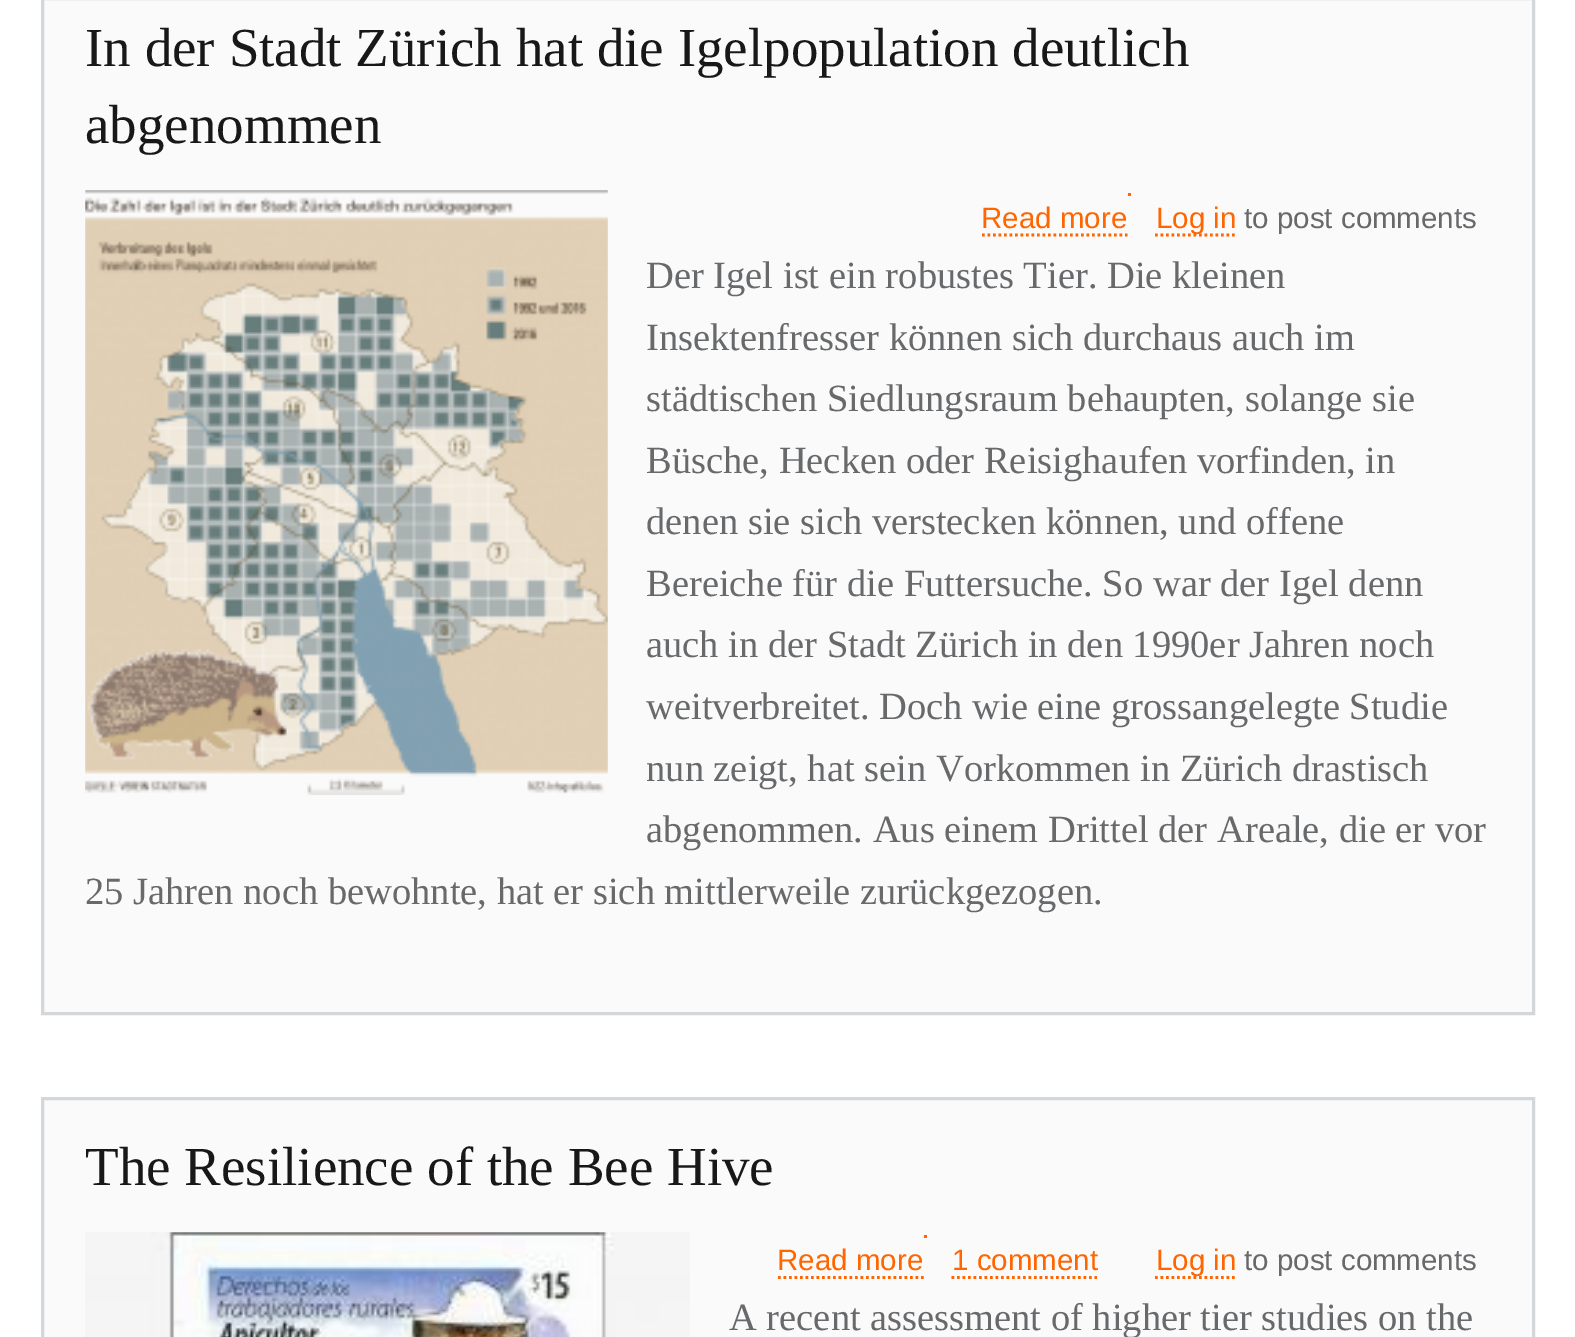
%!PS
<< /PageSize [1575 1337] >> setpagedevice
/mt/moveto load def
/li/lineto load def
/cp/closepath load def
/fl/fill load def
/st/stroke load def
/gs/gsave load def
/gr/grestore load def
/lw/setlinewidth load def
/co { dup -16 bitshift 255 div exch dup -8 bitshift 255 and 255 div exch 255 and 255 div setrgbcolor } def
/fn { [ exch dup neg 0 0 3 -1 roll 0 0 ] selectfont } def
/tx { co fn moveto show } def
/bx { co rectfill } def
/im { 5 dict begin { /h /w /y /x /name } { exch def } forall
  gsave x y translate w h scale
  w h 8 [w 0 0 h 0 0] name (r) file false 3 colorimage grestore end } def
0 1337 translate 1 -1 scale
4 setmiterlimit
0 0 1575 1337 16#FFFFFF bx
16#FAFAFA co
42.5 -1.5 mt 1533.5 -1.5 li 1533.5 1013.5 li 42.5 1013.5 li cp gs fl gr
16#D3D7D9 co
3 lw
st
(media/1.raw) 85 190 523 605 im
16#FF6600 co
2.8 lw
[2.75 2.75] 0 setdash
982 235 mt 1127.5 235 li st
1128 193 3 3 16#FF6600 bx
1155 235 mt 1235 235 li st
16#FAFAFA co
42.5 1098.5 mt 1533.5 1098.5 li 1533.5 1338.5 li 42.5 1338.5 li cp gs fl gr
16#D3D7D9 co
3 lw
[] 0 setdash
st
(media/2.raw) 85 1232 605 105 im
16#FF6600 co
2.8 lw
[2.75 2.75] 0 setdash
778 1277.5 mt 924 1277.5 li st
924 1235 3 3 16#FF6600 bx
951.5 1277.5 mt 1097 1277.5 li st
1155 1277.5 mt 1235 1277.5 li st
(In der Stadt Zürich hat die Igelpopulation deutlich) 85 66 /LiberationSerif-Regular 55 16#181818 tx
(abgenommen) 85 143 /LiberationSerif-Regular 55 16#181818 tx
(Read more) 981 228 /LiberationSans-Regular 29.5 16#FF6600 tx
(Log in) 1156 228 /LiberationSans-Regular 29.5 16#FF6600 tx
(to post comments) 1244 228 /LiberationSans-Regular 29.5 16#68696B tx
(Der Igel ist ein robustes Tier. Die kleinen) 646 288 /LiberationSerif-Regular 38.5 16#68696B tx
(Insektenfresser können sich durchaus auch im) 646 350 /LiberationSerif-Regular 38.5 16#68696B tx
(städtischen Siedlungsraum behaupten, solange sie) 646 411 /LiberationSerif-Regular 38.5 16#68696B tx
(Büsche, Hecken oder Reisighaufen vorfinden, in) 646 473 /LiberationSerif-Regular 38.5 16#68696B tx
(denen sie sich verstecken können, und offene) 646 534 /LiberationSerif-Regular 38.5 16#68696B tx
(Bereiche für die Futtersuche. So war der Igel denn) 646 596 /LiberationSerif-Regular 38.5 16#68696B tx
(auch in der Stadt Zürich in den 1990er Jahren noch) 646 657 /LiberationSerif-Regular 38.5 16#68696B tx
(weitverbreitet. Doch wie eine grossangelegte Studie) 646 719 /LiberationSerif-Regular 38.5 16#68696B tx
(nun zeigt, hat sein Vorkommen in Zürich drastisch) 646 781 /LiberationSerif-Regular 38.5 16#68696B tx
(abgenommen. Aus einem Drittel der Areale, die er vor) 646 842 /LiberationSerif-Regular 38.5 16#68696B tx
(25 Jahren noch bewohnte, hat er sich mittlerweile zurückgezogen.) 85 904 /LiberationSerif-Regular 38.5 16#68696B tx
(The Resilience of the Bee Hive) 85 1185 /LiberationSerif-Regular 55 16#181818 tx
(Read more) 777 1270 /LiberationSans-Regular 29.5 16#FF6600 tx
(1 comment) 952 1270 /LiberationSans-Regular 29.5 16#FF6600 tx
(Log in) 1156 1270 /LiberationSans-Regular 29.5 16#FF6600 tx
(to post comments) 1244 1270 /LiberationSans-Regular 29.5 16#68696B tx
(A recent assessment of higher tier studies on the) 729 1330 /LiberationSerif-Regular 38.5 16#68696B tx
showpage
